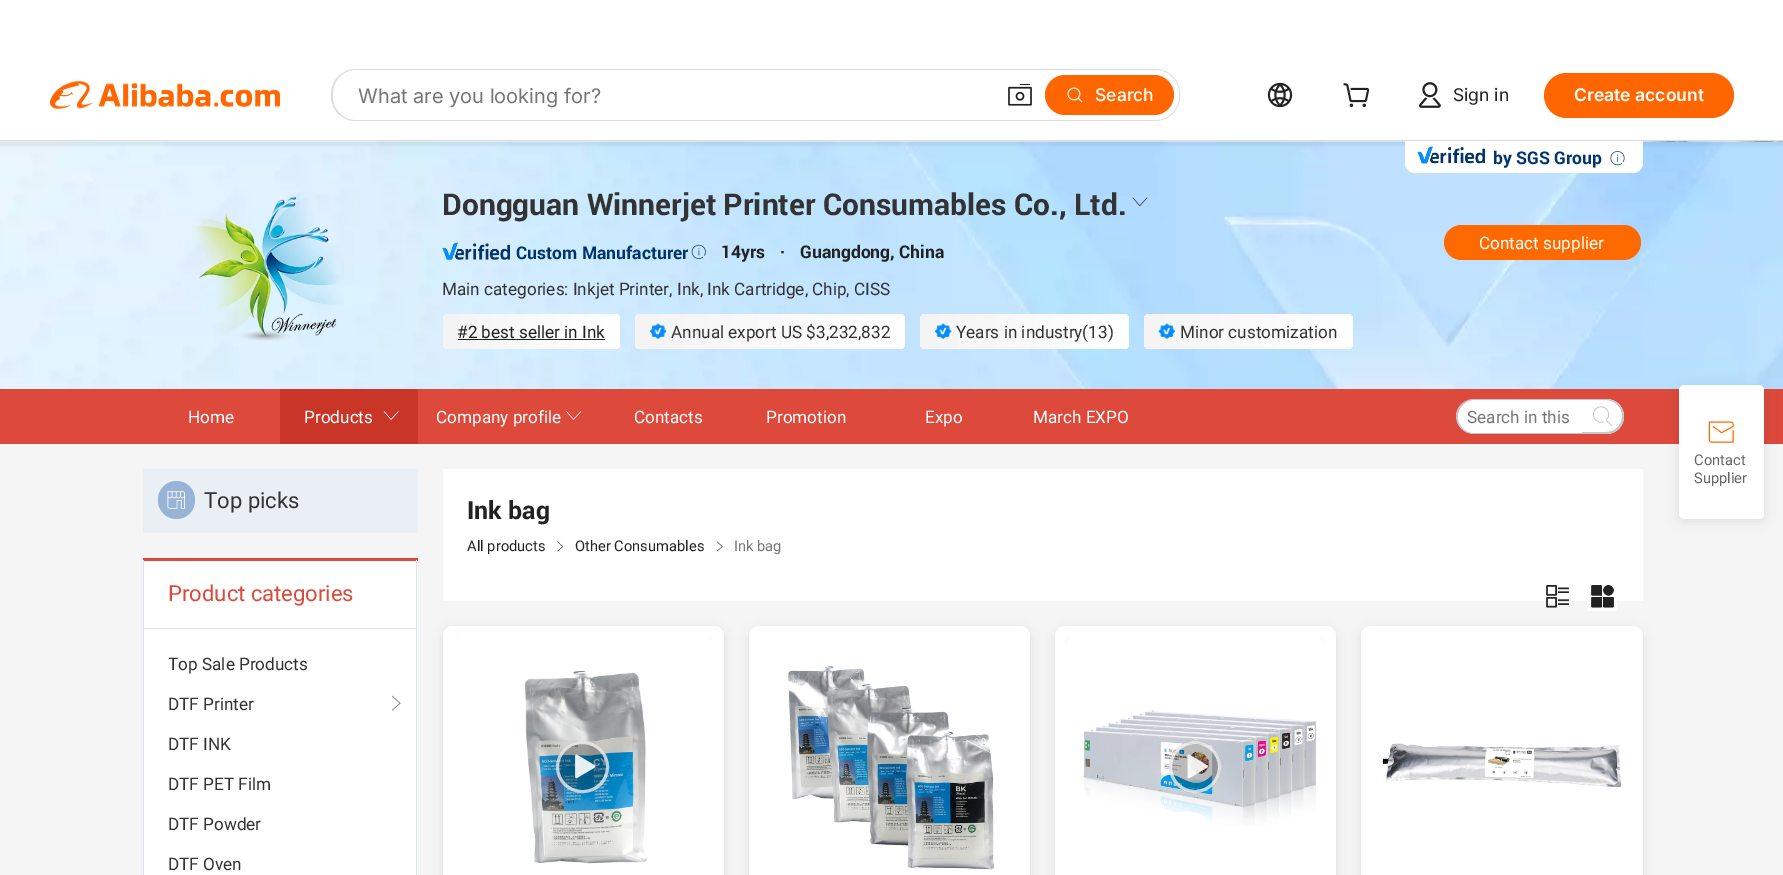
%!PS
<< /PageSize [1783 875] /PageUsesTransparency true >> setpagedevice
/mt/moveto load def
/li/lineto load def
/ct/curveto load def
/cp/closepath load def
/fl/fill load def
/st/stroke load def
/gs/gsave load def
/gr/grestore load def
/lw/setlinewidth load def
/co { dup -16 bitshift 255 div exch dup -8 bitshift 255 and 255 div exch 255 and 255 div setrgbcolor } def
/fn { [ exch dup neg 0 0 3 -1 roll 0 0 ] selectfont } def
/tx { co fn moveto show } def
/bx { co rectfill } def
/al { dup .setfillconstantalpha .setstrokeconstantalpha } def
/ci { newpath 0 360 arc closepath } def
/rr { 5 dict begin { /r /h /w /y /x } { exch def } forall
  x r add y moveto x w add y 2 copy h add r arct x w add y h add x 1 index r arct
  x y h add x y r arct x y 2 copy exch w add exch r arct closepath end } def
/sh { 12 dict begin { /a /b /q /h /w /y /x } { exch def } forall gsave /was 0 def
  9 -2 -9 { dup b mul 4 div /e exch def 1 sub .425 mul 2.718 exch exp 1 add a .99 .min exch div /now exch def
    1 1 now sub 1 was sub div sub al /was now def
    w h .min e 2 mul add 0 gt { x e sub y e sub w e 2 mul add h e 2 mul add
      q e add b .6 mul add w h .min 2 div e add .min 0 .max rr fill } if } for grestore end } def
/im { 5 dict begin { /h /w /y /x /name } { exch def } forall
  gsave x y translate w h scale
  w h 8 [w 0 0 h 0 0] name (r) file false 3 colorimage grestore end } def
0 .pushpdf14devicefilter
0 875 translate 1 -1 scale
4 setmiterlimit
0 0 1783 875 16#FFFFFF bx
(media/7.raw) 0 141 1783 1 im
(media/8.raw) 0 141 1783 248 im
16#000000 co
-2 141 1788 5 0 1 .05 sh
0 140 1783 1 16#DDDDDD bx
(media/1.raw) 50 81 230 28 im
331 69 849 52 25 rr fl
16#FFFFFF co
333 70 846 50 24 rr fl
(media/2.raw) 1008 84 24 22 im
16#FF6600 co
1045 75 129 40 20 rr fl
(media/3.raw) 1067 87 16 16 im
(media/4.raw) 1267 82 26 26 im
(media/5.raw) 1343 83 27 25 im
(media/6.raw) 1418 82 23 26 im
1544 73 190 45 22.5 rr fl
16#FFFFFF co
1405 141 mt 1643 141 li 1643 163 li 1643 168.5 1638.5 173 1633 173 ct 1415 173 li 1409.5 173 1405 168.5 1405 163 ct cp fl
(media/9.raw) 1417 146 68 18 im
(media/10.raw) 1610 151 15 15 im
(media/11.raw) 192 191 152 150 im
(media/12.raw) 1132 197 16 10 im
(media/13.raw) 442 242 68 18 im
(media/14.raw) 691 244 15 15 im
gs 443 314 177 35 5 rr clip newpath
<< /ShadingType 2 /ColorSpace /DeviceRGB /Coords [620 331 443 331] /Extend [true true] /Function << /FunctionType 2 /Domain [0 1] /C0 [1 1 1] /C1 [.957 .957 .957] /N 1 >> >> shfill gr
458 339 147 1 16#222222 bx
gs 635 314 270 35 5 rr clip newpath
<< /ShadingType 2 /ColorSpace /DeviceRGB /Coords [905 331 635 331] /Extend [true true] /Function << /FunctionType 2 /Domain [0 1] /C0 [1 1 1] /C1 [.957 .957 .957] /N 1 >> >> shfill gr
(media/15.raw) 650 323 17 16 im
gs 920 314 209 35 5 rr clip newpath
<< /ShadingType 2 /ColorSpace /DeviceRGB /Coords [1129 331 920 331] /Extend [true true] /Function << /FunctionType 2 /Domain [0 1] /C0 [1 1 1] /C1 [.957 .957 .957] /N 1 >> >> shfill gr
(media/16.raw) 935 323 17 16 im
gs 1144 314 209 35 5 rr clip newpath
<< /ShadingType 2 /ColorSpace /DeviceRGB /Coords [1353 331 1144 331] /Extend [true true] /Function << /FunctionType 2 /Domain [0 1] /C0 [1 1 1] /C1 [.957 .957 .957] /N 1 >> >> shfill gr
(media/17.raw) 1158 323 17 16 im
16#FF6A00 co
1444 225 197 35 17.5 rr fl
0 389 1783 55 16#DD493B bx
280 389 138 55 16#C93527 bx
(media/18.raw) 383 411 16 9 im
(media/19.raw) 566 411 15 9 im
16#C4C6CF co
1474 399 mt 1582 399 li 1582 434 li 1474 434 li 1464 434 1456 426 1456 416 ct 1456 407 1464 399 1474 399 ct cp 1474 400 mt 1582 400 li 1582 432 li 1474 432 li 1465 432 1458 425 1458 416 ct 1458 407 1465 400 1474 400 ct cp eofill
16#FFFFFF co
1474.5 400 mt 1582.5 400 li 1583 400 1583 400 1583 400.5 ct 1583 432.5 li 1583 433 1583 433 1582.5 433 ct 1474.5 433 li 1465.5 433 1458 425.5 1458 416.5 ct 1458 407.5 1465.5 400 1474.5 400 ct cp fl
1583 399 mt 1606.5 399 li 1616 399 1624 407 1624 416.5 ct 1624 426 1616 434 1606.5 434 ct 1583 434 li cp fl
16#C4C6CF co
1582 399 mt 1606 399 li 1616 399 1624 407 1624 416 ct 1624 426 1616 434 1606 434 ct 1582 434 li cp 1582 400 mt 1606 400 li 1615 400 1622 407 1622 416 ct 1622 425 1615 432 1606 432 ct 1582 432 li cp eofill
(media/20.raw) 1593 406 19 21 im
0 444 1783 431 16#F5F5F5 bx
143 469 275 64 16#E9EFF5 bx
16#97B3D5 co
158 481 37 38 18.5 rr fl
(media/21.raw) 167 491 18 18 im
144 561 274 314 16#FFFFFF bx
143 558 275 3 16#DD493B bx
416 560 1 315 16#DBE3EF bx
143 560 1 315 16#DBE3EF bx
144 628 272 1 16#DBE3EF bx
(media/22.raw) 391 695 10 16 im
443 469 1200 132 16#FFFFFF bx
(media/23.raw) 557 541 6 11 im
(media/24.raw) 716 541 7 11 im
(media/25.raw) 1546 585 23 23 im
(media/26.raw) 1587 585 31 26 im
16#000000 co
443 629 281 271 10 5 .1 sh
16#FFFFFF co
443 626 281 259 10 rr fl
(media/27.raw) 453 637 259 227 im
0.27 al
16#000000 co
556 741 53 52 26 rr fl
0.72 al
16#FFFFFF co
3 lw
557.5 742.5 50 49 24.5 rr st
1 al
(media/28.raw) 575 754 21 25 im
16#000000 co
749 629 281 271 10 5 .1 sh
16#FFFFFF co
749 626 281 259 10 rr fl
(media/29.raw) 788 665 207 205 im
16#000000 co
1055 629 281 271 10 5 .1 sh
16#FFFFFF co
1055 626 281 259 10 rr fl
(media/30.raw) 1065 637 261 189 im
0.27 al
16#000000 co
1195 767 26 ci fl
0.72 al
16#FFFFFF co
1195 767 24.5 ci st
1 al
(media/31.raw) 1187 754 21 25 im
16#000000 co
1361 629 282 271 10 5 .1 sh
16#FFFFFF co
1361 626 282 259 10 rr fl
(media/32.raw) 1382 743 239 46 im
16#000000 co
1679 388 85 133 5 6 .1 sh
16#FFFFFF co
1679 385 85 134 5 rr fl
(media/33.raw) 1708 421 26 22 im
(What are you looking for?) 358 103 /Inter-Regular 20 16#767676 tx
(Search) 1095 101 /Inter-Medium 17.5 16#FFFFFF tx
(Sign in) 1453 101 /Inter-Regular 17.5 16#222222 tx
(Create account) 1574 101 /Inter-SemiBold 17.5 16#FFFFFF tx
(by SGS Group) 1493 164 /Roboto-Bold 17.5 16#00346E tx
(Dongguan Winnerjet Printer Consumables Co., Ltd.) 442 215 /Roboto-Bold 30 16#333333 tx
(Custom Manufacturer) 516 259 /Roboto-Bold 17.5 16#00346E tx
(14yrs) 721 258 /Roboto-Bold 17.5 16#222222 tx
(·) 780 258 /Roboto-Bold 17.5 16#222222 tx
(Guangdong, China) 800 258 /Roboto-Bold 17.5 16#222222 tx
(Main categories: Inkjet Printer, Ink, Ink Cartridge, Chip, CISS) 442 295 /Roboto-Regular 17.5 16#333333 tx
(#2 best seller in Ink) 457 338 /Roboto-Regular 17.5 16#222222 tx
(Annual export US $3,232,832) 671 338 /Roboto-Regular 17.5 16#333333 tx
(Years in industry\(13\)) 956 338 /Roboto-Regular 17.5 16#333333 tx
(Minor customization) 1180 338 /Roboto-Regular 17.5 16#333333 tx
(Contact supplier) 1479 249 /Roboto-Regular 17.5 16#FFFFFF tx
(Home) 188 423 /Roboto-Regular 17.5 16#FFFFFF tx
(Products) 304 423 /Roboto-Regular 17.5 16#FFFFFF tx
(Company profile) 436 423 /Roboto-Regular 17.5 16#FFFFFF tx
(Contacts) 634 423 /Roboto-Regular 17.5 16#FFFFFF tx
(Promotion) 766 423 /Roboto-Regular 17.5 16#FFFFFF tx
(Expo) 925 423 /Roboto-Regular 17.5 16#FFFFFF tx
(March EXPO) 1033 423 /Roboto-Regular 17.5 16#FFFFFF tx
(Search in this) 1467 423 /Roboto-Regular 17.5 16#767676 tx
(Top picks) 204 508 /Roboto-Regular 22.5 16#333333 tx
(Product categories) 168 601 /Roboto-Regular 22.5 16#DD493B tx
gs
169 644 222 40 rectclip
(Top Sale Products) 168 670 /Roboto-Regular 17.5 16#333333 tx
gr
(DTF Printer) 168 710 /Roboto-Regular 17.5 16#333333 tx
(DTF INK) 168 750 /Roboto-Regular 17.5 16#333333 tx
(DTF PET Film) 168 790 /Roboto-Regular 17.5 16#333333 tx
(DTF Powder) 168 830 /Roboto-Regular 17.5 16#333333 tx
(DTF Oven) 168 870 /Roboto-Regular 17.5 16#333333 tx
(Ink bag) 467 519 /Roboto-Bold 25 16#222222 tx
(All products) 467 551 /Roboto-Regular 15 16#222222 tx
(Other Consumables) 575 551 /Roboto-Regular 15 16#222222 tx
(Ink bag) 734 551 /Roboto-Regular 15 16#767676 tx
(Contact) 1694 465 /Roboto-Regular 15 16#666666 tx
(Supplier) 1694 483 /Roboto-Regular 15 16#666666 tx
.poppdf14devicefilter showpage
